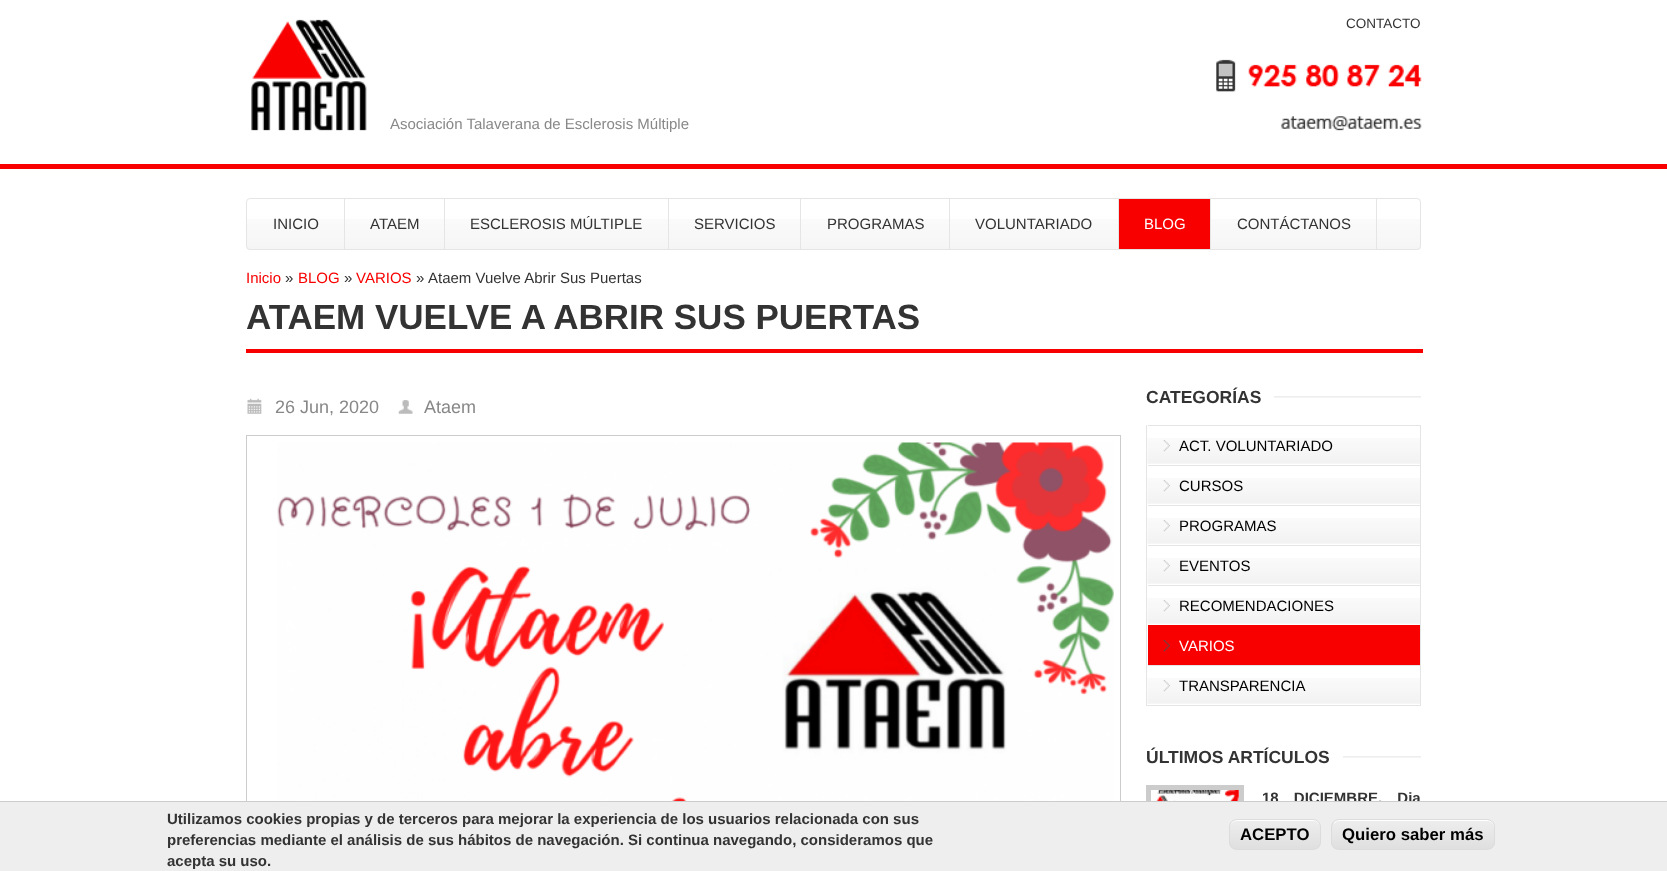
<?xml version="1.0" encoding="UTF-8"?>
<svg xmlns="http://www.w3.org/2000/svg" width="1667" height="871">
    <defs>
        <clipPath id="clip1"><rect x="1229" y="819" width="92" height="31" rx="8"/></clipPath>
        <linearGradient id="g1" gradientUnits="userSpaceOnUse" x1="1230" y1="820" x2="1230" y2="849"><stop offset="0.05" stop-color="#EDEDED"/><stop offset="1" stop-color="#DFDFDF"/></linearGradient>
        <clipPath id="clip2"><rect x="1331" y="819" width="164" height="31" rx="8"/></clipPath>
        <linearGradient id="g2" gradientUnits="userSpaceOnUse" x1="1333" y1="820" x2="1333" y2="849"><stop offset="0.05" stop-color="#EDEDED"/><stop offset="1" stop-color="#DFDFDF"/></linearGradient>
    </defs>
    <rect width="100%" height="100%" fill="#FFFFFF"/>
    <rect x="0" y="164" width="1667" height="5" fill="#F80000"/>
    <text x="1346" y="28" font-family="Liberation Sans" font-size="13.5" fill="#333333">CONTACTO</text>
    <image x="1216" y="59" width="206" height="72" href="img_01.png"/>
    <image x="251" y="19" width="116" height="112" href="img_02.png"/>
    <text x="390" y="129" font-family="Liberation Sans" font-size="15" fill="#888888">Asociación Talaverana de Esclerosis Múltiple</text>
    <image x="246" y="219" width="1175" height="31" href="img_03.png"/>
    <rect x="246.5" y="198.5" width="1174" height="51" rx="3.5" fill="none" stroke="#E5E5E5"/>
    <rect x="344" y="199" width="1" height="50" fill="#E5E5E5"/>
    <text x="273" y="229" font-family="Liberation Sans" font-size="15" fill="#333333">INICIO</text>
    <rect x="444" y="199" width="1" height="50" fill="#E5E5E5"/>
    <text x="370" y="229" font-family="Liberation Sans" font-size="15" fill="#333333">ATAEM</text>
    <rect x="668" y="199" width="1" height="50" fill="#E5E5E5"/>
    <text x="470" y="229" font-family="Liberation Sans" font-size="15" fill="#333333">ESCLEROSIS MÚLTIPLE</text>
    <rect x="800" y="199" width="1" height="50" fill="#E5E5E5"/>
    <text x="694" y="229" font-family="Liberation Sans" font-size="15" fill="#333333">SERVICIOS</text>
    <rect x="949" y="199" width="1" height="50" fill="#E5E5E5"/>
    <text x="827" y="229" font-family="Liberation Sans" font-size="15" fill="#333333">PROGRAMAS</text>
    <rect x="1118" y="199" width="1" height="50" fill="#E5E5E5"/>
    <text x="975" y="229" font-family="Liberation Sans" font-size="15" fill="#333333">VOLUNTARIADO</text>
    <rect x="1119" y="199" width="91" height="50" fill="#F80000"/>
    <rect x="1210" y="199" width="1" height="50" fill="#E5E5E5"/>
    <text x="1144" y="229" font-family="Liberation Sans" font-size="15" fill="#FFFFFF">BLOG</text>
    <rect x="1376" y="199" width="1" height="50" fill="#E5E5E5"/>
    <text x="1237" y="229" font-family="Liberation Sans" font-size="15" fill="#333333">CONTÁCTANOS</text>
    <text x="246" y="283" font-family="Liberation Sans" font-size="15" fill="#F80000">Inicio</text>
    <text x="285" y="283" font-family="Liberation Sans" font-size="15" fill="#333333">»</text>
    <text x="298" y="283" font-family="Liberation Sans" font-size="15" fill="#F80000">BLOG</text>
    <text x="344" y="283" font-family="Liberation Sans" font-size="15" fill="#333333">»</text>
    <text x="356" y="283" font-family="Liberation Sans" font-size="15" fill="#F80000">VARIOS</text>
    <text x="416" y="283" font-family="Liberation Sans" font-size="15" fill="#333333">»</text>
    <text x="428" y="283" font-family="Liberation Sans" font-size="15" fill="#333333">Ataem Vuelve Abrir Sus Puertas</text>
    <rect x="246" y="349" width="1177" height="4" fill="#F80000"/>
    <text x="246" y="329" font-family="Liberation Sans" font-size="35" font-weight="700" fill="#333333">ATAEM VUELVE A ABRIR SUS PUERTAS</text>
    <image x="247" y="398" width="15" height="16" href="img_04.png"/>
    <text x="275" y="413" font-family="Liberation Sans" font-size="18" fill="#888888">26 Jun, 2020</text>
    <image x="398" y="400" width="15" height="14" href="img_05.png"/>
    <text x="424" y="413" font-family="Liberation Sans" font-size="18" fill="#888888">Ataem</text>
    <rect x="246.5" y="435.5" width="874" height="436" fill="none" stroke="#CCCCCC"/>
    <image x="277" y="442" width="837" height="359" href="img_06.png"/>
    <image x="1274" y="396" width="147" height="2" href="img_07.png"/>
    <text x="1146" y="403" font-family="Liberation Sans" font-size="17.5" font-weight="700" fill="#333333">CATEGORÍAS</text>
    <rect x="1420" y="425" width="1" height="281" fill="#E5E5E5"/>
    <rect x="1146" y="705" width="275" height="1" fill="#E5E5E5"/>
    <rect x="1146" y="425" width="1" height="281" fill="#E5E5E5"/>
    <image x="1147" y="438" width="273" height="26" href="img_08.png"/>
    <rect x="1148" y="425" width="272" height="1" fill="#E5E5E5"/>
    <image x="1163" y="440" width="7" height="12" href="img_09.png"/>
    <text x="1179" y="451" font-family="Liberation Sans" font-size="15" fill="#000000">ACT. VOLUNTARIADO</text>
    <image x="1147" y="478" width="273" height="26" href="img_08.png"/>
    <rect x="1148" y="465" width="272" height="1" fill="#E5E5E5"/>
    <image x="1163" y="480" width="7" height="12" href="img_09.png"/>
    <text x="1179" y="491" font-family="Liberation Sans" font-size="15" fill="#000000">CURSOS</text>
    <image x="1147" y="518" width="273" height="26" href="img_08.png"/>
    <rect x="1148" y="505" width="272" height="1" fill="#E5E5E5"/>
    <image x="1163" y="520" width="7" height="12" href="img_09.png"/>
    <text x="1179" y="531" font-family="Liberation Sans" font-size="15" fill="#000000">PROGRAMAS</text>
    <image x="1147" y="558" width="273" height="26" href="img_08.png"/>
    <rect x="1148" y="545" width="272" height="1" fill="#E5E5E5"/>
    <image x="1163" y="560" width="7" height="12" href="img_09.png"/>
    <text x="1179" y="571" font-family="Liberation Sans" font-size="15" fill="#000000">EVENTOS</text>
    <image x="1147" y="598" width="273" height="26" href="img_08.png"/>
    <rect x="1148" y="585" width="272" height="1" fill="#E5E5E5"/>
    <image x="1163" y="600" width="7" height="12" href="img_09.png"/>
    <text x="1179" y="611" font-family="Liberation Sans" font-size="15" fill="#000000">RECOMENDACIONES</text>
    <rect x="1148" y="625" width="272" height="40" fill="#F80000"/>
    <image x="1163" y="640" width="7" height="12" href="img_10.png"/>
    <text x="1179" y="651" font-family="Liberation Sans" font-size="15" fill="#FFFFFF">VARIOS</text>
    <image x="1147" y="678" width="273" height="26" href="img_08.png"/>
    <rect x="1148" y="665" width="272" height="1" fill="#E5E5E5"/>
    <image x="1163" y="680" width="7" height="12" href="img_09.png"/>
    <text x="1179" y="691" font-family="Liberation Sans" font-size="15" fill="#000000">TRANSPARENCIA</text>
    <image x="1343" y="756" width="78" height="2" href="img_11.png"/>
    <text x="1146" y="763" font-family="Liberation Sans" font-size="17.5" font-weight="700" fill="#333333">ÚLTIMOS ARTÍCULOS</text>
    <rect x="1148.5" y="787.5" width="93" height="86" fill="none" stroke="#CCCCCC" stroke-width="5"/>
    <image x="1151" y="790" width="88" height="11" href="img_12.png"/>
    <text x="1262" y="803" word-spacing="11" font-family="Liberation Sans" font-size="15" font-weight="700" fill="#333333">18 DICIEMBRE. Dia</text>
    <rect x="0" y="802" width="1667" height="69" fill="#EEEEEE"/>
    <rect x="0" y="801" width="1667" height="1" fill="#CCCCCC"/>
    <text font-family="Liberation Sans" font-size="15" font-weight="700" fill="#333333">
        <tspan x="167" y="824">Utilizamos cookies propias y de terceros para mejorar la experiencia de los usuarios relacionada con sus</tspan>
        <tspan x="167" y="845">preferencias mediante el análisis de sus hábitos de navegación. Si continua navegando, consideramos que</tspan>
        <tspan x="167" y="866">acepta su uso.</tspan>
    </text>
    <g clip-path="url(#clip1)">
        <rect x="1229" y="820" width="92" height="29" fill="url(#g1)"/>
    </g>
    <path d="M 1236 821 H 1314 C 1317 821 1320 824 1320 828 C 1320 817 1310 820 1301 820 H 1249 C 1240 820 1230 817 1230 828 C 1230 824 1233 821 1236 821 Z" fill="#FFFFFF"/>
    <rect x="1229.5" y="819.5" width="91" height="30" rx="7.5" fill="none" stroke="#DCDCDC"/>
    <text x="1240" y="840" font-family="Liberation Sans" font-size="16.75" font-weight="700" fill="#000000">ACEPTO</text>
    <g clip-path="url(#clip2)">
        <rect x="1331" y="820" width="164" height="29" fill="url(#g2)"/>
    </g>
    <path d="M 1339 821 H 1488 C 1491 821 1494 824 1494 828 V 826 C 1494 823 1491 820 1488 820 H 1339 C 1337 820 1334 821 1334 824 C 1335 822 1337 821 1339 821 Z" fill="#FFFFFF"/>
    <rect x="1331.5" y="819.5" width="163" height="30" rx="7.5" fill="none" stroke="#DCDCDC"/>
    <text x="1342" y="840" font-family="Liberation Sans" font-size="16.75" font-weight="700" fill="#000000">Quiero saber más</text>
</svg>
